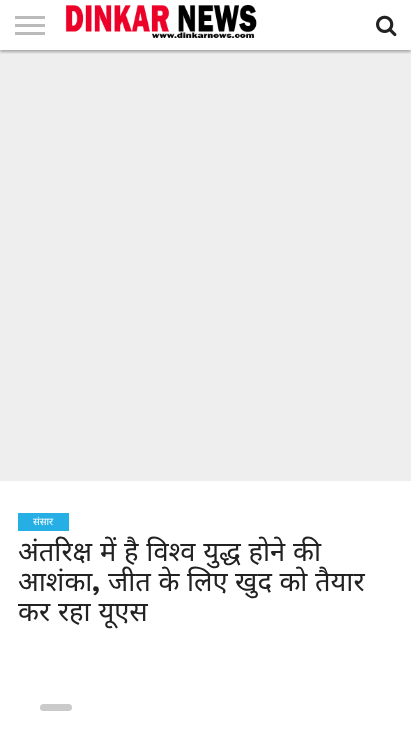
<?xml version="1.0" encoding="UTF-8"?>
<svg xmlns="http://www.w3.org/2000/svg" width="411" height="743">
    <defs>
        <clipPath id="clip1"><rect x="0" y="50" width="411" height="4"/></clipPath>
        <filter id="blur1" x="-50%" y="-200%" width="200%" height="500%"><feGaussianBlur stdDeviation="1.5"/></filter>
    </defs>
    <rect width="100%" height="100%" fill="#FFFFFF"/>
    <rect x="0" y="50" width="411" height="431" fill="#EEEEEE"/>
    <g clip-path="url(#clip1)">
        <rect x="0" y="2" width="411" height="50" fill="#000000" fill-opacity="0.3" filter="url(#blur1)"/>
    </g>
    <rect x="15" y="16" width="30" height="3" fill="#BBBBBB"/>
    <rect x="15" y="24" width="30" height="3" fill="#BBBBBB"/>
    <rect x="15" y="32" width="30" height="3" fill="#BBBBBB"/>
    <image x="65" y="5" width="192" height="33" href="img_01.png"/>
    <image x="376" y="15" width="21" height="22" href="img_02.png"/>
    <rect x="18" y="513" width="51" height="18" fill="#25AFE5"/>
    <text x="33" y="525" font-family="Noto Sans" font-size="10" fill="#FFFFFF">संसार</text>
    <text font-family="Noto Sans" font-size="27.25" fill="#222222">
        <tspan x="18" y="561" word-spacing="0.75">अंतरिक्ष में है विश्‍व युद्ध होने की</tspan>
        <tspan x="18" y="591">आशंका</tspan>
    </text>
    <text x="92" y="591" font-family="Work Sans" font-size="27.25" font-weight="700" fill="#222222">,</text>
    <text x="108" y="591" word-spacing="0.5" font-family="Noto Sans" font-size="27.25" fill="#222222">जीत के लिए खुद को तैयार</text>
    <text x="18" y="621" word-spacing="0.75" font-family="Noto Sans" font-size="27.25" fill="#222222">कर रहा यूएस</text>
    <rect x="40" y="704" width="32" height="7" rx="3.5" fill="#CACACA"/>
</svg>
